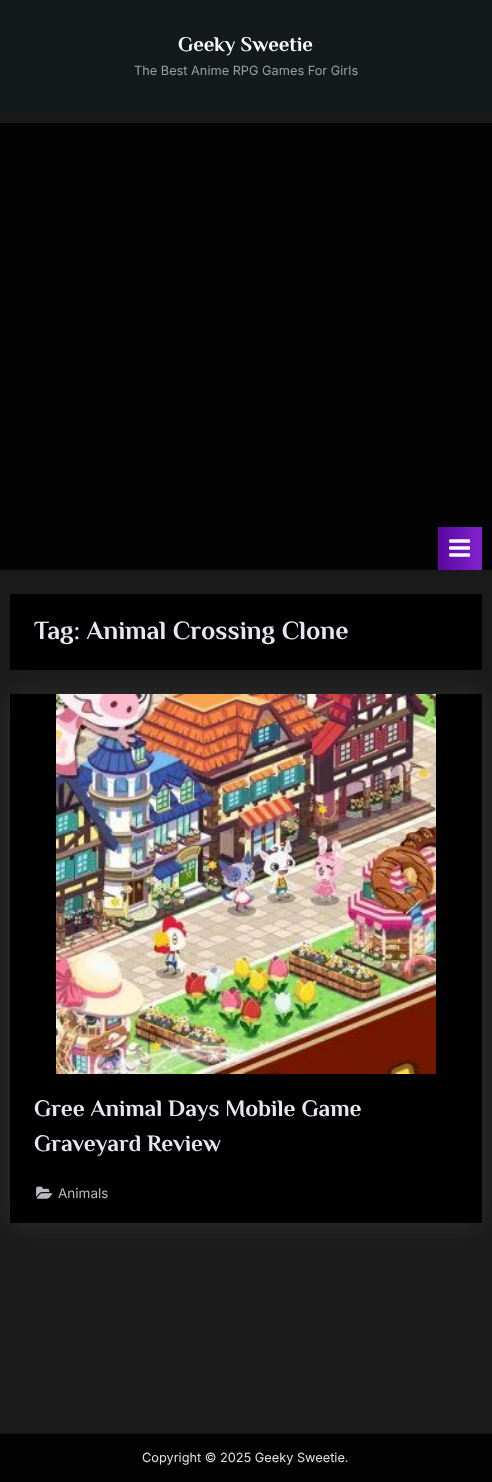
<?xml version="1.0" encoding="UTF-8"?>
<svg xmlns="http://www.w3.org/2000/svg" width="492" height="1482">
    <defs>
        <linearGradient id="g1" gradientUnits="userSpaceOnUse" x1="360" y1="549" x2="440" y2="549"><stop offset="0" stop-color="#5B08A0"/><stop offset="0.51" stop-color="#8023CE"/><stop offset="1" stop-color="#5B08A0"/></linearGradient>
        <linearGradient id="g2" gradientUnits="userSpaceOnUse" x1="440" y1="549" x2="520" y2="549"><stop offset="0" stop-color="#5B08A0"/><stop offset="0.51" stop-color="#8023CE"/><stop offset="1" stop-color="#5B08A0"/></linearGradient>
        <filter id="blur1" x="-50%" y="-200%" width="200%" height="500%"><feGaussianBlur stdDeviation="15"/></filter>
    </defs>
    <rect width="100%" height="100%" fill="#1A1A1A"/>
    <rect x="0" y="0" width="492" height="113" fill="#141A1A"/>
    <text x="178" y="51" font-family="Philosopher" font-size="20.75" font-weight="700" fill="#FFFFFF">Geeky Sweetie</text>
    <text x="134" y="75" font-family="Inter" font-size="12.75" fill="#999FA3">The Best Anime RPG Games For Girls</text>
    <rect x="0" y="123" width="492" height="447" fill="#030303"/>
    <rect x="438" y="527" width="2" height="43" fill="url(#g1)"/>
    <rect x="440" y="527" width="42" height="43" fill="url(#g2)"/>
    <image x="449" y="539" width="22" height="18" href="img_01.png"/>
    <rect x="10" y="594" width="472" height="76" fill="#010101"/>
    <text x="34" y="639" font-family="Philosopher" font-size="26" font-weight="700" fill="#E7E7EF">Tag: Animal Crossing Clone</text>
    <rect x="10" y="695" width="472" height="529" fill="#FFFFFF" fill-opacity="0.09" filter="url(#blur1)"/>
    <rect x="10" y="694" width="472" height="529" fill="#010101"/>
    <image x="56" y="694" width="380" height="380" href="img_02.png"/>
    <text font-family="Philosopher" font-size="23.4" font-weight="700" fill="#E7E7EF">
        <tspan x="34" y="1116">Gree Animal Days Mobile Game</tspan>
        <tspan x="34" y="1151">Graveyard Review</tspan>
    </text>
    <image x="36" y="1186" width="17" height="13" href="img_03.png"/>
    <text x="58" y="1198" font-family="Inter" font-size="13.5" fill="#B8BCBF">Animals</text>
    <rect x="0" y="1434" width="492" height="48" fill="#020202"/>
    <text x="142" y="1462" font-family="Inter" font-size="12.75" fill="#E1E1E1">Copyright © 2025 Geeky Sweetie.</text>
</svg>
